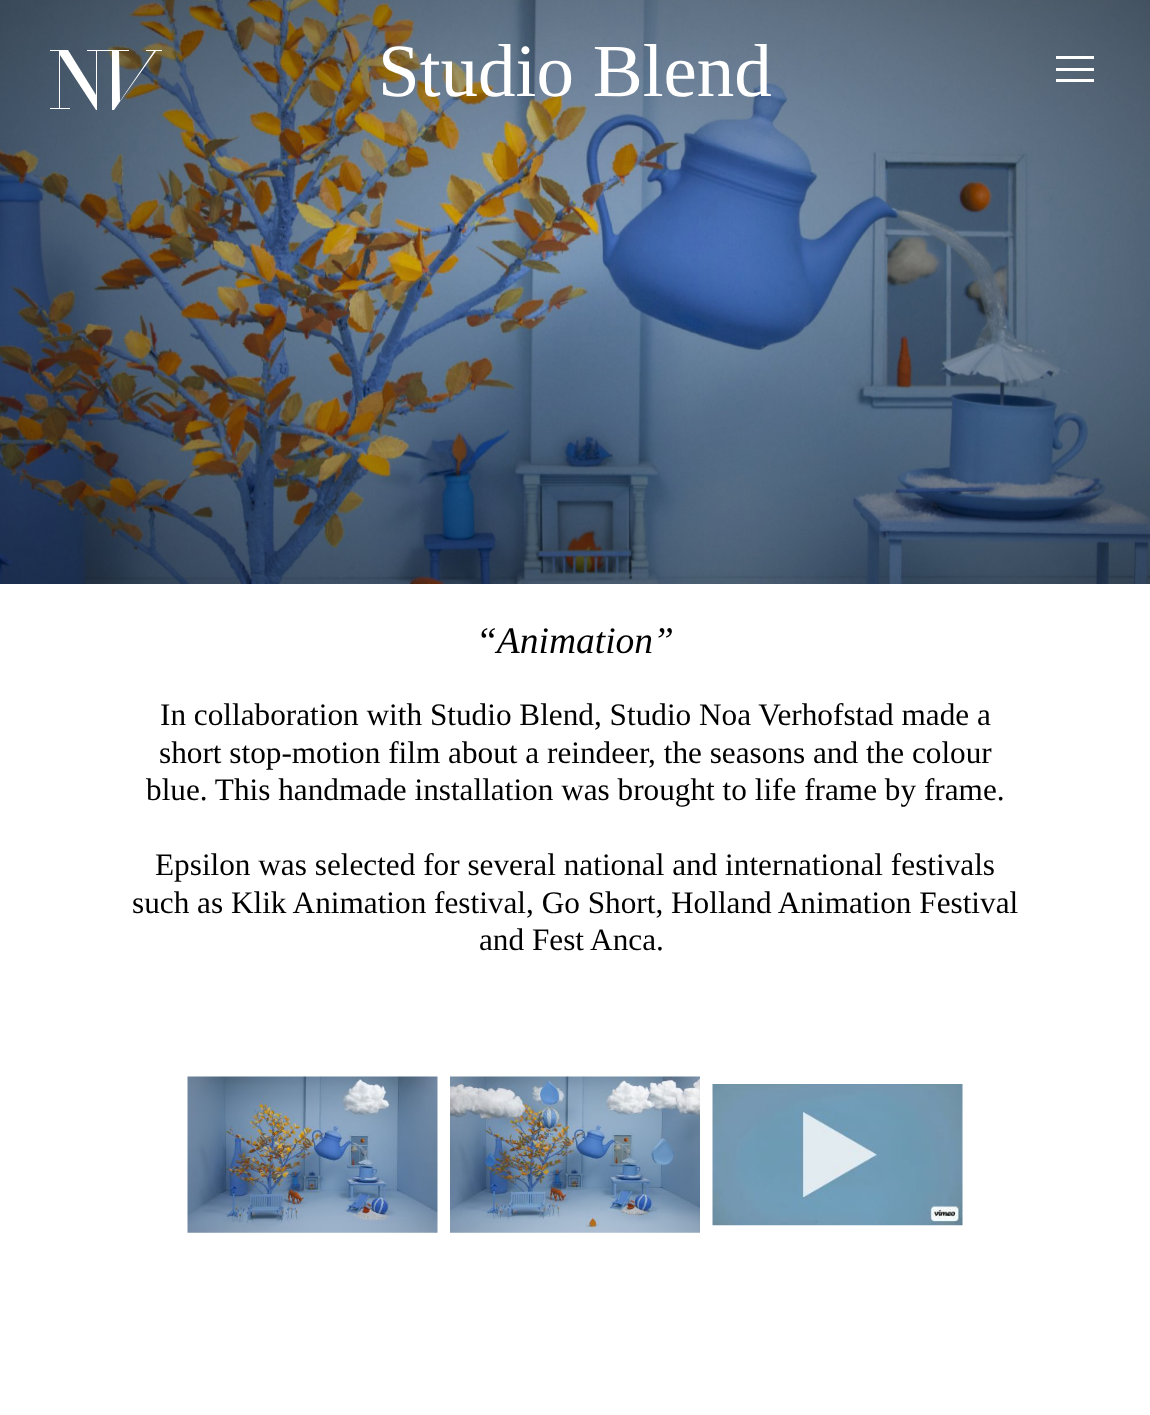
<?xml version="1.0" encoding="UTF-8"?>
<svg xmlns="http://www.w3.org/2000/svg" width="1150" height="1415">
    <rect width="100%" height="100%" fill="#FFFFFF"/>
    <image x="0" y="0" width="1150" height="584" href="img_01.png"/>
    <path d="M 146 50 V 51 H 154 L 120 101 L 119 51 H 129 V 50 H 87 V 51 H 96 V 95 L 68 50 H 50 V 51 H 59 V 108 H 50 V 109 H 70 V 108 H 60 V 55 L 96 110 H 97 V 51 H 112 V 110 H 114 L 156 51 H 162 V 50 Z" fill="#FFFFFF"/>
    <text x="378" y="96" font-family="Liberation Serif" font-size="75" fill="#FFFFFF">Studio Blend</text>
    <text x="476" y="653" font-family="Liberation Serif" font-size="37.5" font-style="italic" fill="#000000">“Animation”</text>
    <text x="160" y="725" font-family="Liberation Serif" font-size="31.25" fill="#000000">In collaboration with Studio Blend, Studio Noa Verhofstad made a</text>
    <text x="159" y="763" font-family="Liberation Serif" font-size="31.25" fill="#000000">short stop-motion film about a reindeer, the seasons and the colour</text>
    <text x="146" y="800" font-family="Liberation Serif" font-size="31.25" fill="#000000">blue. This handmade installation was brought to life frame by frame.</text>
    <text x="155" y="875" font-family="Liberation Serif" font-size="31.25" fill="#000000">Epsilon was selected for several national and international festivals</text>
    <text x="132" y="913" font-family="Liberation Serif" font-size="31.25" fill="#000000">such as Klik Animation festival, Go Short, Holland Animation Festival</text>
    <text x="479" y="950" font-family="Liberation Serif" font-size="31.25" fill="#000000">and Fest Anca.</text>
    <image x="187" y="1076" width="251" height="157" href="img_02.png"/>
    <image x="450" y="1076" width="250" height="157" href="img_03.png"/>
    <image x="712" y="1084" width="251" height="142" href="img_04.png"/>
    <rect x="1056" y="56" width="38" height="3" fill="#FFFFFF"/>
    <rect x="1056" y="68" width="38" height="3" fill="#FFFFFF"/>
    <rect x="1056" y="79" width="38" height="3" fill="#FFFFFF"/>
</svg>
